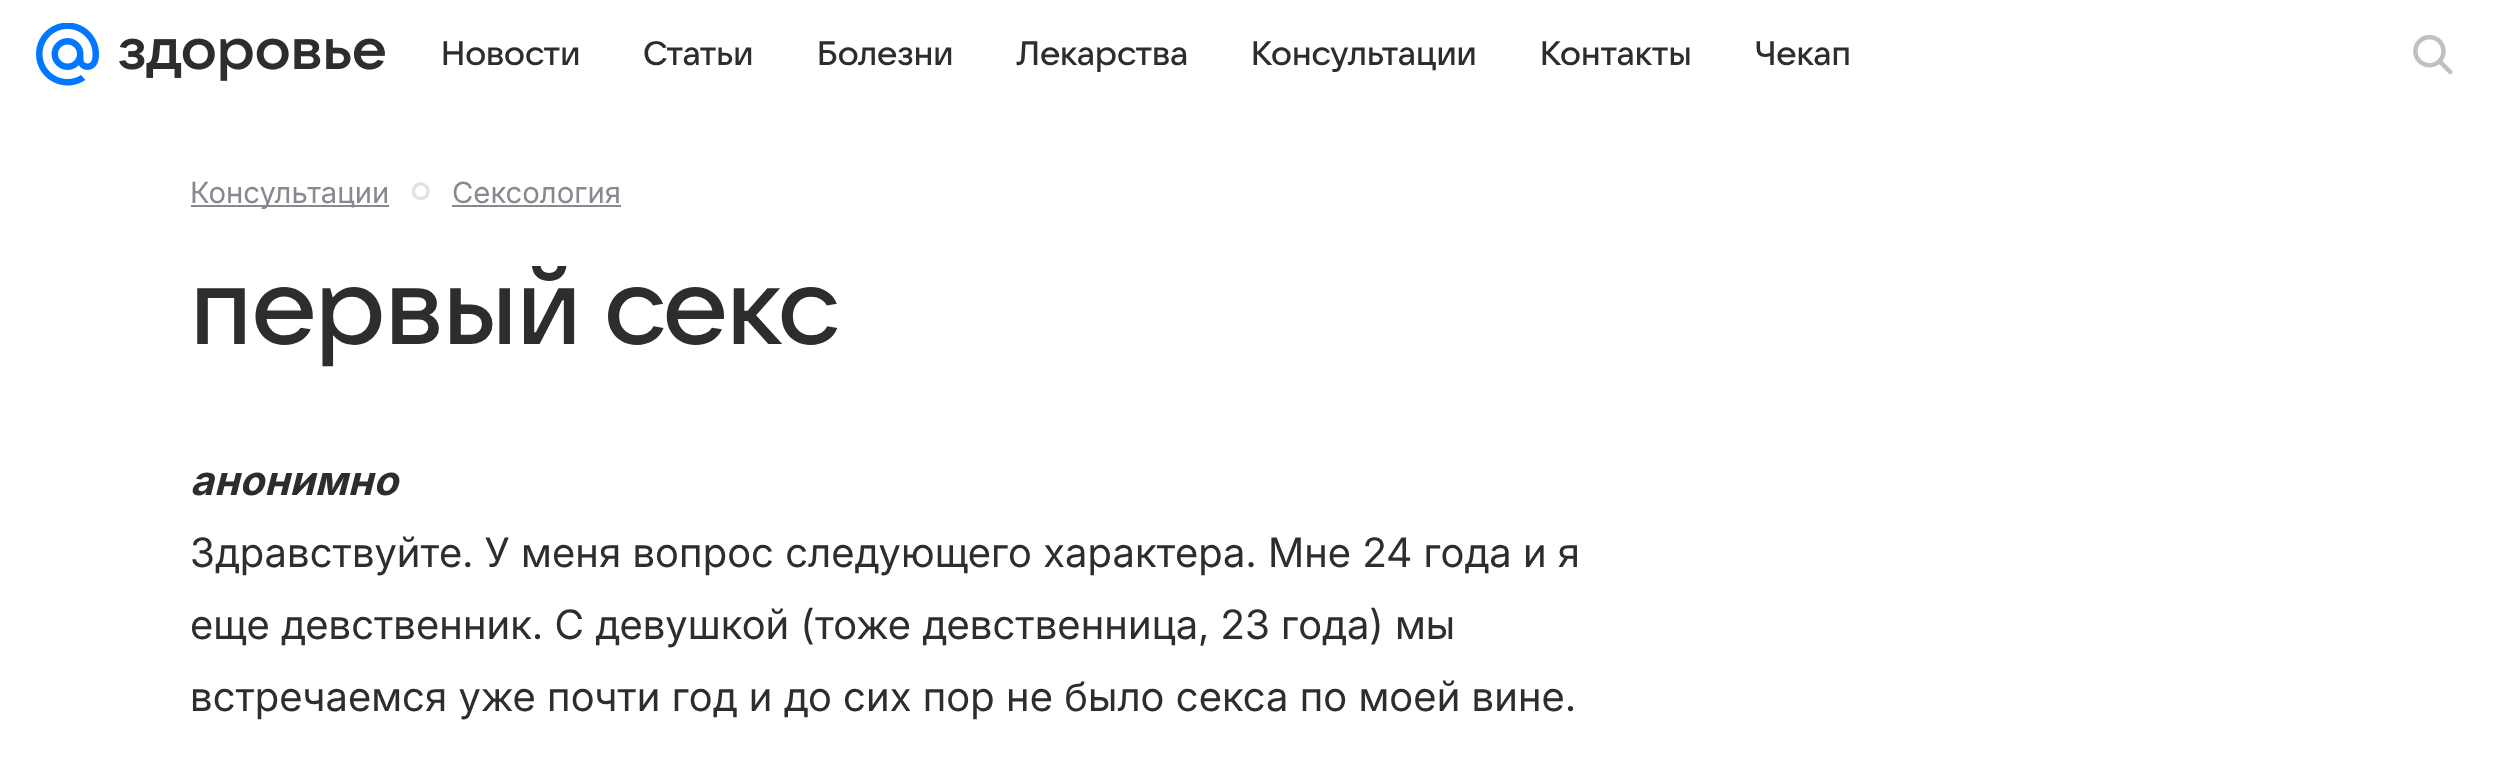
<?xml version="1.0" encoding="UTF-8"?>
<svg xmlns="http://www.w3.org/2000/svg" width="2494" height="768">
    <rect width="100%" height="100%" fill="#FFFFFF"/>
    <image x="36" y="23" width="63" height="63" href="img_01.png"/>
    <image x="119" y="38" width="266" height="43" href="img_02.png"/>
    <text x="441" y="65" font-family="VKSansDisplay" font-size="33.75" font-weight="500" fill="#2C2D2E">Новости</text>
    <text x="643" y="65" font-family="VKSansDisplay" font-size="33.75" font-weight="500" fill="#2C2D2E">Статьи</text>
    <text x="817" y="65" font-family="VKSansDisplay" font-size="33.75" font-weight="500" fill="#2C2D2E">Болезни</text>
    <text x="1016" y="65" font-family="VKSansDisplay" font-size="33.75" font-weight="500" fill="#2C2D2E">Лекарства</text>
    <text x="1251" y="65" font-family="VKSansDisplay" font-size="33.75" font-weight="500" fill="#2C2D2E">Консультации</text>
    <text x="1540" y="65" font-family="VKSansDisplay" font-size="33.75" font-weight="500" fill="#2C2D2E">Контакты</text>
    <text x="1755" y="65" font-family="VKSansDisplay" font-size="33.75" font-weight="500" fill="#2C2D2E">Чекап</text>
    <image x="2413" y="34" width="40" height="41" href="img_03.png"/>
    <rect x="191" y="205" width="198" height="2" fill="#87898F"/>
    <text x="190" y="203" font-family="'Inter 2'" font-size="29.25" fill="#87898F">Консультации</text>
    <image x="411" y="182" width="19" height="19" href="img_04.png"/>
    <text x="452" y="203" font-family="'Inter 2'" font-size="29.25" fill="#87898F">Сексология</text>
    <rect x="452" y="205" width="169" height="2" fill="#87898F"/>
    <text x="190" y="344" font-family="VKSansDisplay" font-size="108" font-weight="500" letter-spacing="-0.5" fill="#2C2D2E">первый секс</text>
    <text x="190" y="495" font-family="Inter" font-size="40.5" font-weight="700" font-style="italic" letter-spacing="0.12" fill="#2C2D2E">анонимно</text>
    <text font-family="Inter" font-size="40.5" letter-spacing="0.12" fill="#2C2D2E">
        <tspan x="190" y="567">Здравствуйте. У меня вопрос следующего характера. Мне 24 года и я</tspan>
        <tspan x="190" y="639">еще девственник. С девушкой (тоже девственница, 23 года) мы</tspan>
        <tspan x="190" y="711">встречаемся уже почти год и до сих пор не было секса по моей вине.</tspan>
    </text>
</svg>
